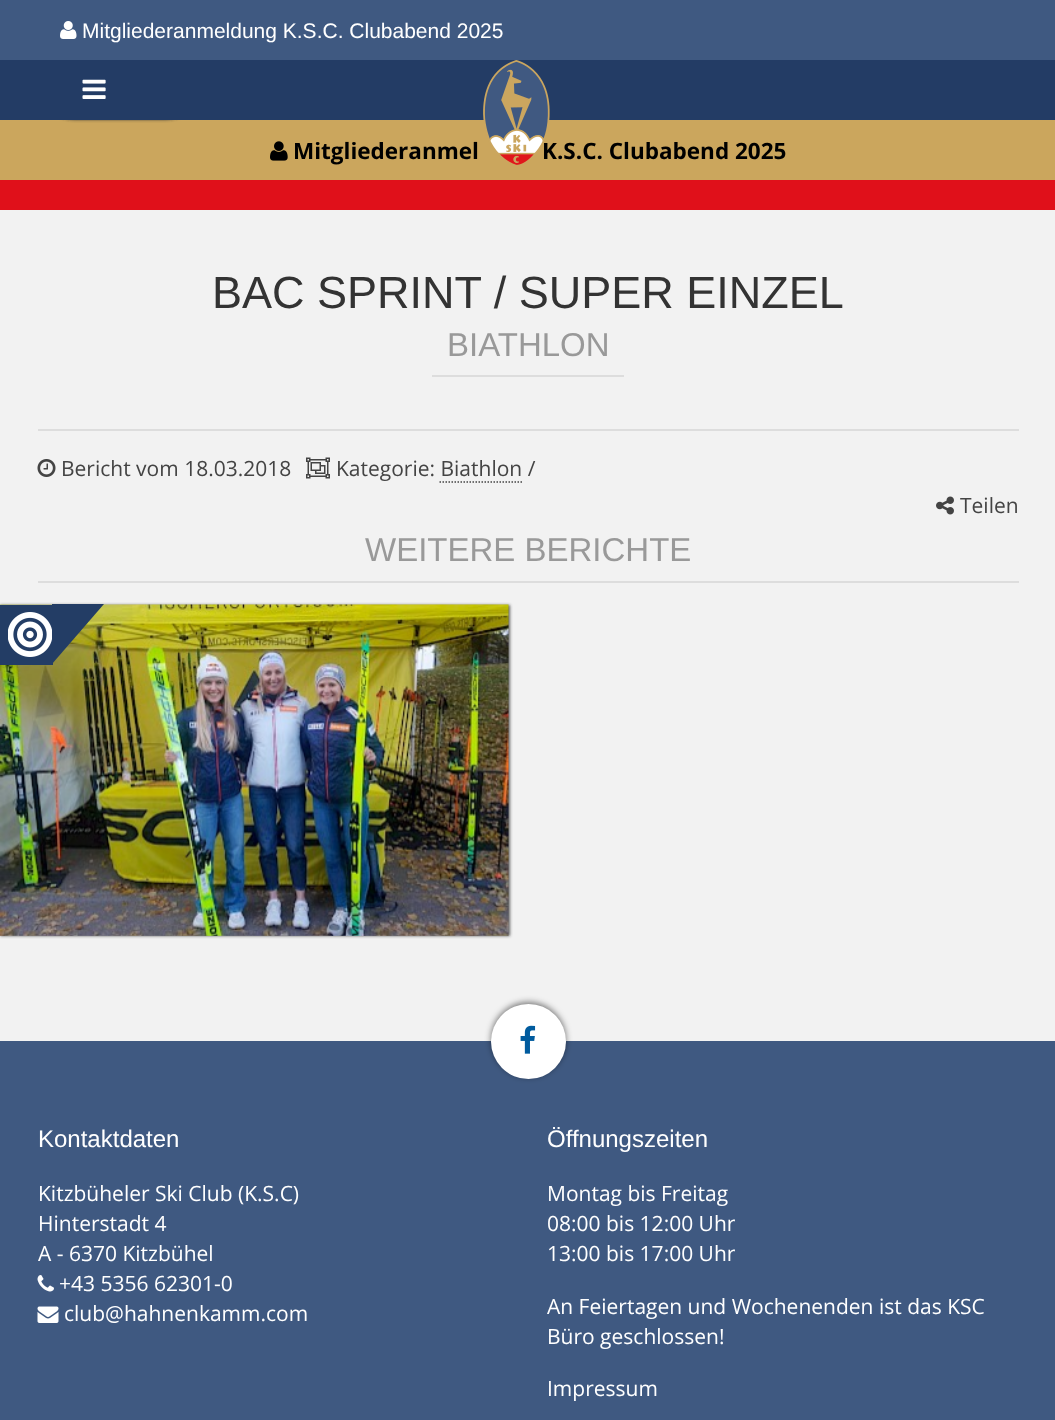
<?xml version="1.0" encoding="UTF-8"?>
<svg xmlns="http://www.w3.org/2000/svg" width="1055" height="1420">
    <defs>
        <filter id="blur1" x="-50%" y="-200%" width="200%" height="500%"><feGaussianBlur stdDeviation="1.5"/></filter>
        <filter id="blur2" x="-50%" y="-200%" width="200%" height="500%"><feGaussianBlur stdDeviation="3"/></filter>
    </defs>
    <rect width="100%" height="100%" fill="#F2F2F2"/>
    <rect x="0" y="180" width="1055" height="30" fill="#E0101A"/>
    <rect x="0" y="120" width="1055" height="60" fill="#CBA65D"/>
    <rect x="45" y="72" width="150" height="48" rx="30" fill="#323232" fill-opacity="0.75" filter="url(#blur1)"/>
    <rect x="0" y="60" width="1055" height="60" fill="#233C65"/>
    <rect x="0" y="0" width="1055" height="60" fill="#3F5981"/>
    <image x="60" y="21" width="17" height="18" href="img_01.png"/>
    <text x="82" y="38" font-family="Liberation Sans" font-size="21" fill="#FFFFFF">Mitgliederanmeldung K.S.C. Clubabend 2025</text>
    <image x="82" y="79" width="24" height="20" href="img_02.png"/>
    <text x="542" y="159" font-family="Open Sans" font-size="22.5" font-weight="700" fill="#000000">K.S.C. Clubabend 2025</text>
    <image x="483" y="60" width="67" height="105" href="img_03.png"/>
    <image x="270" y="141" width="18" height="20" href="img_04.png"/>
    <text x="293" y="159" font-family="Open Sans" font-size="22.5" font-weight="700" fill="#000000">Mitgliederanmel</text>
    <text x="212" y="308" font-family="Liberation Sans" font-size="45" fill="#333333">BAC SPRINT / SUPER EINZEL</text>
    <rect x="432" y="375" width="192" height="2" fill="#DDDDDD"/>
    <text x="447" y="356" font-family="Liberation Sans" font-size="33" fill="#999999">BIATHLON</text>
    <rect x="38" y="429" width="981" height="2" fill="#DDDDDD"/>
    <image x="37" y="459" width="19" height="18" href="img_05.png"/>
    <text x="61" y="476" font-family="Open Sans" font-size="21" fill="#444444">Bericht vom 18.03.2018</text>
    <image x="306" y="457" width="24" height="22" href="img_06.png"/>
    <text x="336" y="476" font-family="Open Sans" font-size="21" fill="#444444">Kategorie: Biathlon /</text>
    <path d="M 439.5 482 H 522" fill="none" stroke="#444444" stroke-width="1.5" stroke-dasharray="1.5 1.5"/>
    <image x="936" y="496" width="18" height="19" href="img_07.png"/>
    <text x="960" y="513" font-family="Open Sans" font-size="21" fill="#444444">Teilen</text>
    <rect x="38" y="581" width="981" height="2" fill="#DDDDDD"/>
    <text x="365" y="561" font-family="Liberation Sans" font-size="33" fill="#999999">WEITERE BERICHTE</text>
    <rect x="0" y="605" width="510" height="331" fill="#323232" fill-opacity="0.75" filter="url(#blur1)"/>
    <image x="0" y="604" width="509" height="332" href="img_08.png"/>
    <rect x="0" y="605" width="53" height="60" fill="#233D65"/>
    <image x="8" y="612" width="44" height="45" href="img_09.png"/>
    <path d="M 52 664 V 604 H 104 Z" fill="#233D65"/>
    <rect x="0" y="1041" width="1055" height="379" fill="#3F5981"/>
    <rect x="491" y="1002" width="75" height="75" rx="37.5" fill="#000000" fill-opacity="0.5" filter="url(#blur2)"/>
    <circle cx="528.5" cy="1041.5" r="37.5" fill="#FFFFFF"/>
    <image x="520" y="1025" width="16" height="29" href="img_10.png"/>
    <text x="38" y="1147" font-family="Liberation Sans" font-size="24" fill="#FFFFFF">Kontaktdaten</text>
    <text font-family="Open Sans" font-size="21" fill="#FFFFFF">
        <tspan x="38" y="1201">Kitzbüheler Ski Club (K.S.C)</tspan>
        <tspan x="38" y="1231">Hinterstadt 4</tspan>
        <tspan x="38" y="1261">A - 6370 Kitzbühel</tspan>
    </text>
    <image x="37" y="1275" width="17" height="17" href="img_11.png"/>
    <text x="59" y="1291" font-family="Open Sans" font-size="21" fill="#FFFFFF">+43 5356 62301-0</text>
    <image x="37" y="1306" width="22" height="17" href="img_12.png"/>
    <text x="64" y="1321" font-family="Open Sans" font-size="21" fill="#FFFFFF">club@hahnenkamm.com</text>
    <text x="547" y="1147" font-family="Liberation Sans" font-size="24" fill="#FFFFFF">Öffnungszeiten</text>
    <text font-family="Open Sans" font-size="21" fill="#FFFFFF">
        <tspan x="547" y="1201">Montag bis Freitag</tspan>
        <tspan x="547" y="1231">08:00 bis 12:00 Uhr</tspan>
        <tspan x="547" y="1261">13:00 bis 17:00 Uhr</tspan>
    </text>
    <text font-family="Open Sans" font-size="21" fill="#FFFFFF">
        <tspan x="547" y="1314">An Feiertagen und Wochenenden ist das KSC</tspan>
        <tspan x="547" y="1344">Büro geschlossen!</tspan>
    </text>
    <text x="547" y="1396" font-family="Open Sans" font-size="21" fill="#FFFFFF">Impressum</text>
</svg>
